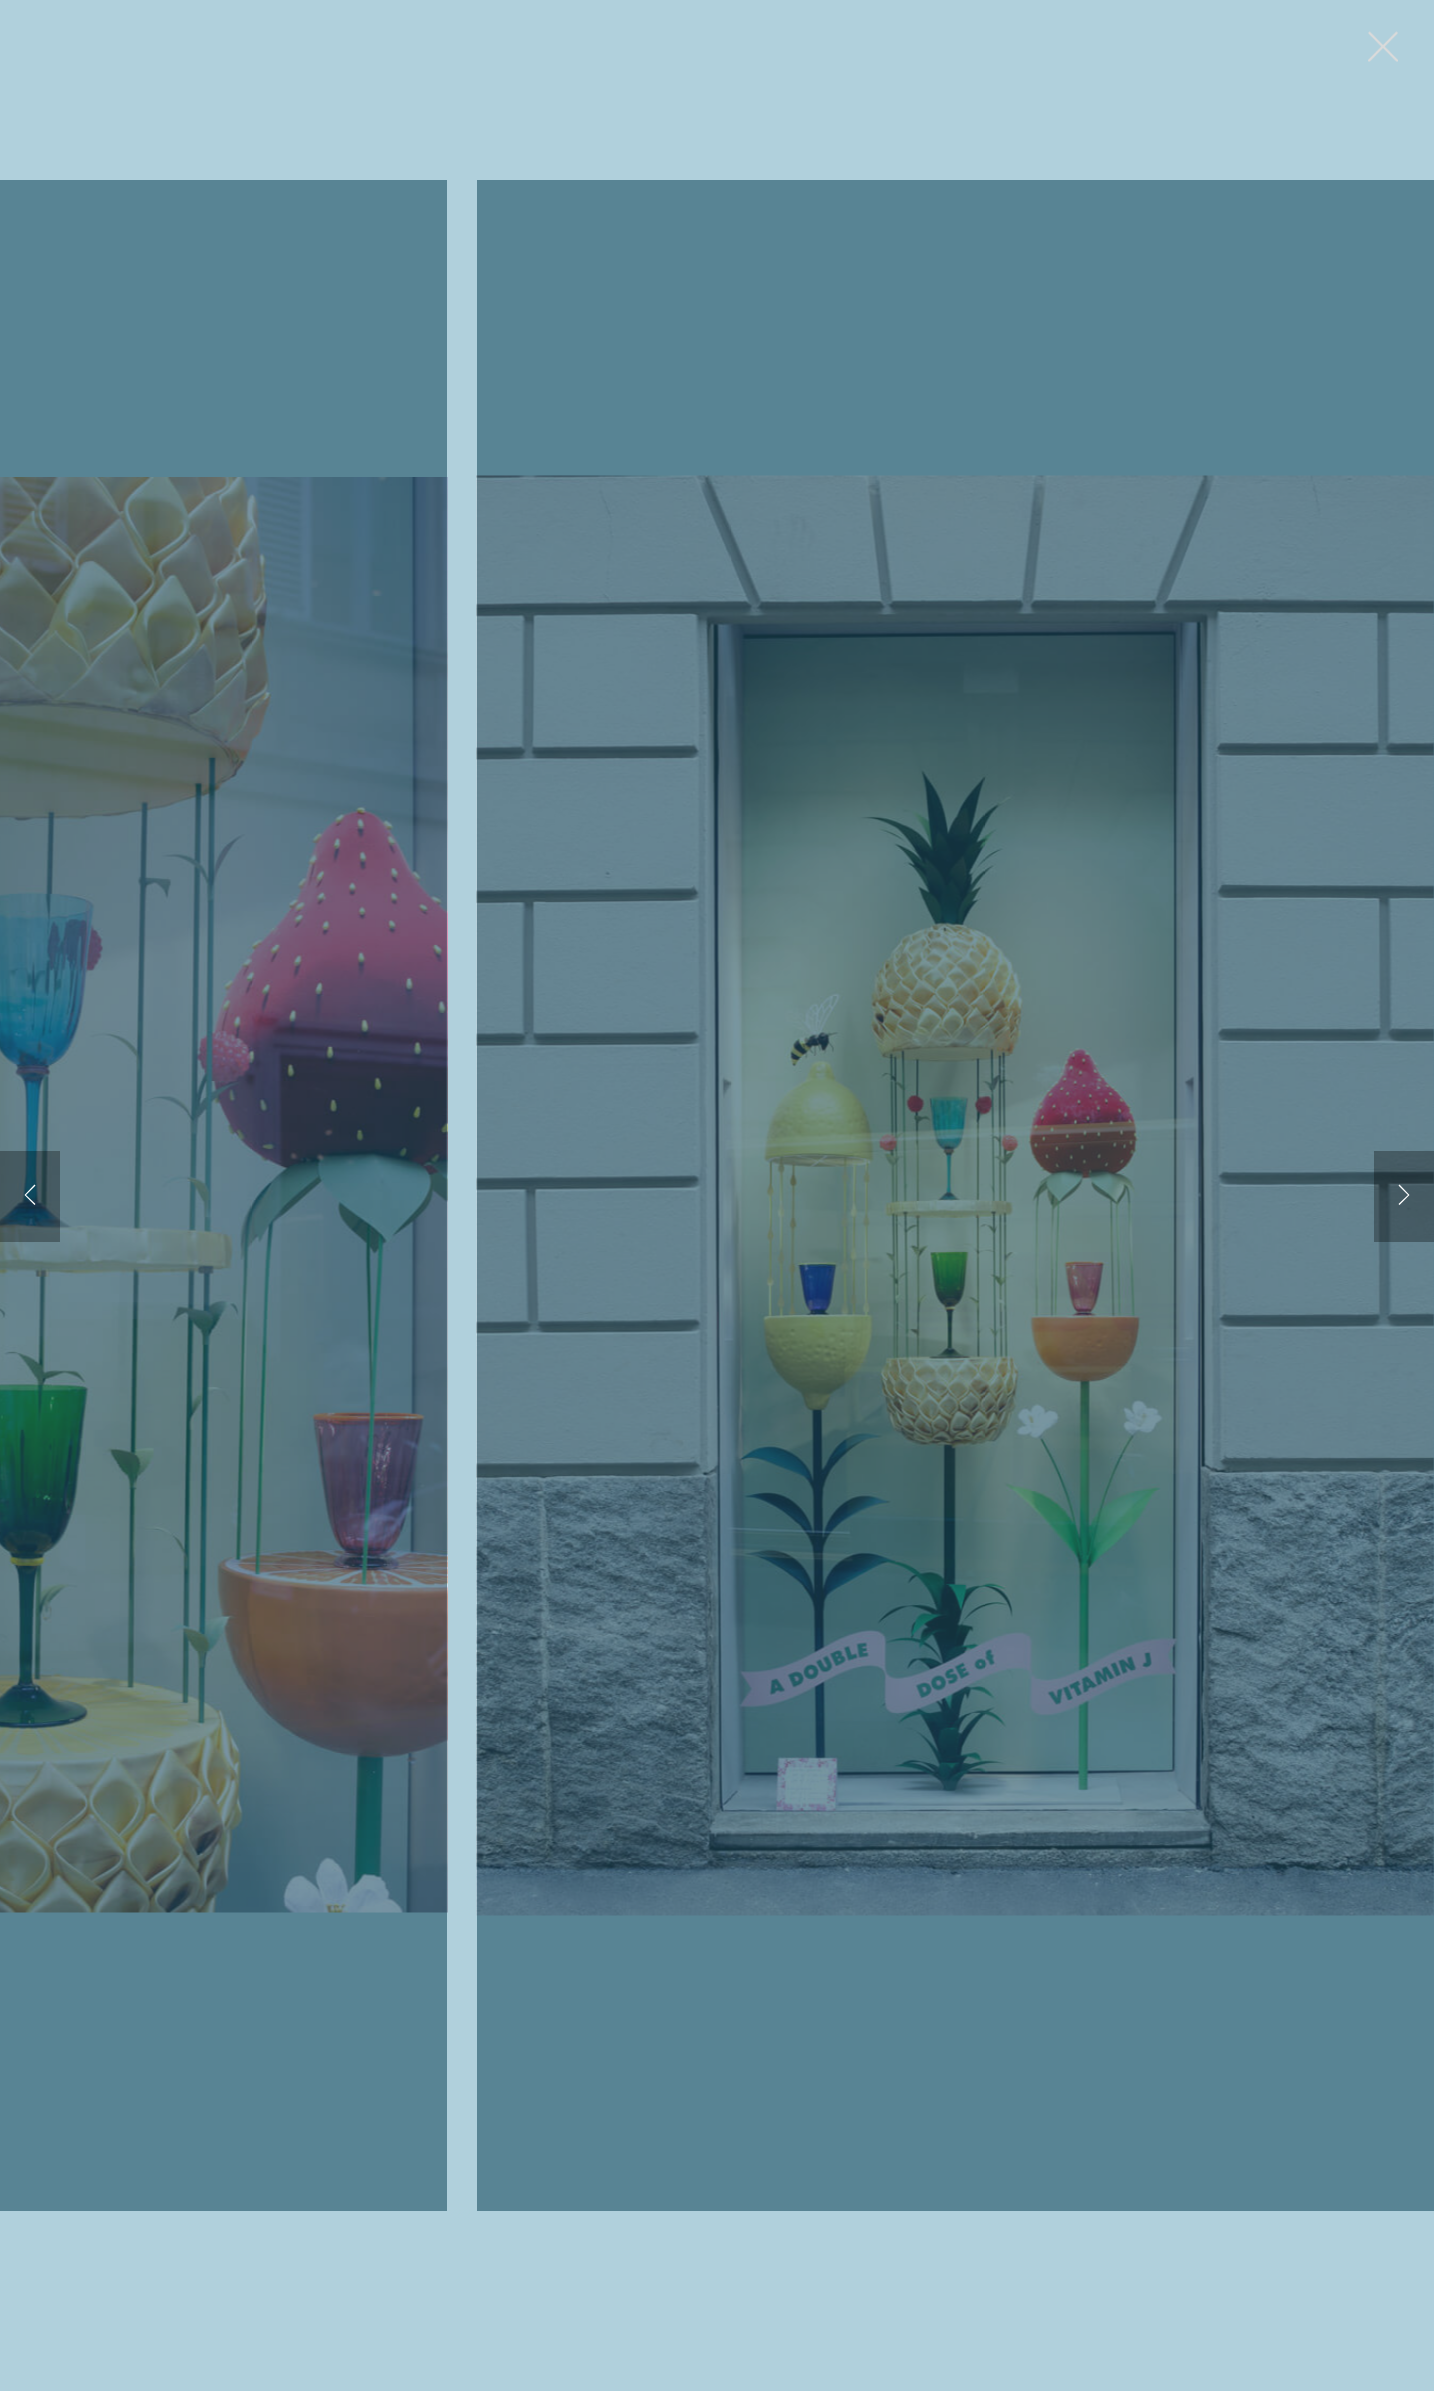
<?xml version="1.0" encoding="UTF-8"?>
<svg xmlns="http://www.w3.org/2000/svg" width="1434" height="2391">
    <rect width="100%" height="100%" fill="#B0D0DC"/>
    <rect x="477" y="180" width="957" height="2031" fill="#588494"/>
    <rect x="0" y="180" width="447" height="2031" fill="#588494"/>
    <image x="1368" y="31" width="30" height="31" href="img_01.png"/>
    <image x="0" y="477" width="448" height="1436" href="img_02.png"/>
    <image x="476" y="475" width="958" height="1441" href="img_03.png"/>
    <rect x="0" y="1151" width="60" height="91" fill="#000000" fill-opacity="0.3"/>
    <path d="M 34.5 1205 L 24.5 1195 L 34.5 1184.5 L 35.5 1185.5 L 26 1195 L 35.5 1204 Z" fill="#FFFFFF"/>
    <rect x="1374" y="1151" width="60" height="91" fill="#000000" fill-opacity="0.3"/>
    <path d="M 1398.5 1185.5 L 1399.5 1184.5 L 1409.5 1195 L 1399.5 1205 L 1398.5 1204 L 1408 1195 Z" fill="#FFFFFF"/>
</svg>
